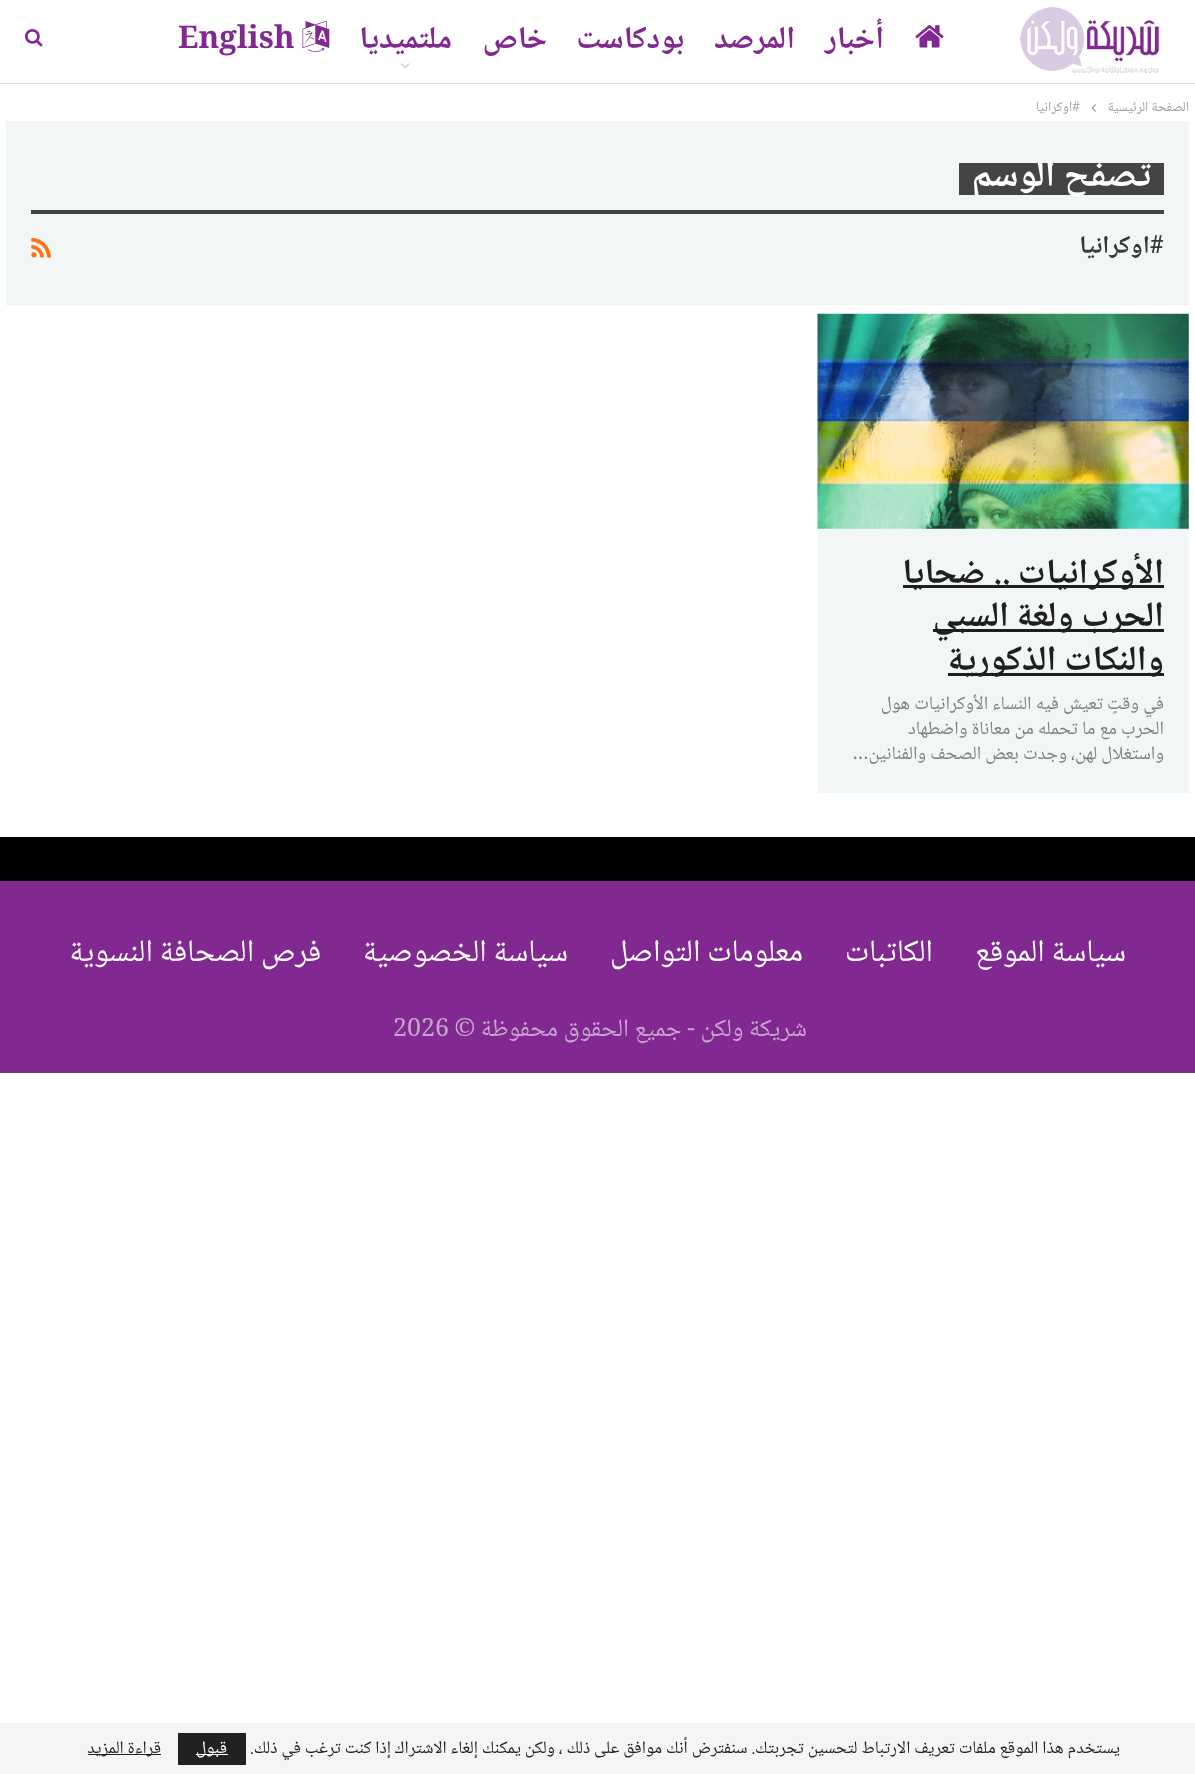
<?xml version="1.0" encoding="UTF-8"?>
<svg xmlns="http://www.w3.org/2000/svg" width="1195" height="1774">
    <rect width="100%" height="100%" fill="#FFFFFF"/>
    <rect x="0" y="83" width="1195" height="1" fill="#DEDEDE"/>
    <image x="1019" y="6" width="141" height="67" href="img_01.png"/>
    <image x="915" y="25" width="29" height="23" href="img_02.png"/>
    <text x="884" y="48" font-family="Noto Naskh Arabic" font-size="31.25" font-weight="700" direction="rtl" fill="#812990">أخبار</text>
    <text x="795" y="48" font-family="Noto Naskh Arabic" font-size="31.25" font-weight="700" direction="rtl" fill="#812990">المرصد</text>
    <text x="684" y="48" font-family="Noto Naskh Arabic" font-size="31.25" font-weight="700" direction="rtl" fill="#812990">بودكاست</text>
    <text x="547" y="48" font-family="Noto Naskh Arabic" font-size="31.25" font-weight="700" direction="rtl" fill="#812990">خاص</text>
    <text x="452" y="48" font-family="Noto Naskh Arabic" font-size="31.25" font-weight="700" direction="rtl" fill="#812990">ملتميديا</text>
    <image x="401" y="63" width="9" height="6" href="img_03.png"/>
    <image x="302" y="20" width="28" height="32" href="img_04.png"/>
    <text x="178" y="48" font-family="Noto Naskh Arabic" font-size="31.25" font-weight="700" fill="#812990">English</text>
    <image x="25" y="29" width="18" height="18" href="img_05.png"/>
    <text x="1189" y="111" font-family="Noto Naskh Arabic" font-size="13.75" direction="rtl" fill="#9E9E9E">الصفحة الرئيسية</text>
    <image x="1091" y="104" width="5" height="8" href="img_06.png"/>
    <text x="1080" y="111" font-family="Noto Naskh Arabic" font-size="13.75" direction="rtl" fill="#9E9E9E">#اوكرانيا</text>
    <rect x="6" y="121" width="1183" height="183" fill="#F3F6F6"/>
    <rect x="6" y="304" width="1183" height="1" fill="#F0F0F0"/>
    <rect x="959" y="163" width="205" height="32" fill="#444444"/>
    <text x="1151" y="186" font-family="Noto Naskh Arabic" font-size="37.5" font-weight="700" direction="rtl" fill="#FFFFFF">تصفح الوسم</text>
    <rect x="31" y="210" width="1133" height="4" fill="#444444"/>
    <text x="1164" y="253" font-family="Noto Naskh Arabic" font-size="25" font-weight="700" direction="rtl" fill="#383838">#اوكرانيا</text>
    <image x="31" y="237" width="20" height="21" href="img_07.png"/>
    <rect x="818" y="314" width="371" height="479" fill="#F3F6F6"/>
    <image x="817" y="313" width="372" height="216" href="img_08.png"/>
    <rect x="903" y="585" width="261" height="3" fill="#1F1F1F"/>
    <text x="1164" y="583" font-family="Noto Naskh Arabic" font-size="35" font-weight="700" direction="rtl" fill="#1F1F1F">الأوكرانيات .. ضحايا</text>
    <rect x="933" y="629" width="231" height="3" fill="#1F1F1F"/>
    <text x="1164" y="626" font-family="Noto Naskh Arabic" font-size="35" font-weight="700" direction="rtl" fill="#1F1F1F">الحرب ولغة السبي</text>
    <rect x="948" y="673" width="216" height="3" fill="#1F1F1F"/>
    <text x="1164" y="670" font-family="Noto Naskh Arabic" font-size="35" font-weight="700" direction="rtl" fill="#1F1F1F">والنكات الذكورية</text>
    <text font-family="Noto Naskh Arabic" font-size="18.75" direction="rtl" fill="#7F7F7F">
        <tspan x="1164" y="709">في وقتٍ تعيش فيه النساء الأوكرانيات هول</tspan>
        <tspan x="1164" y="734">الحرب مع ما تحمله من معاناة واضطهاد</tspan>
        <tspan x="1164" y="759">واستغلال لهن، وجدت بعض الصحف والفنانين…</tspan>
    </text>
    <rect x="0" y="881" width="1195" height="192" fill="#812990"/>
    <rect x="0" y="837" width="1195" height="44" fill="#000000"/>
    <text x="1126" y="961" font-family="Noto Naskh Arabic" font-size="31.25" direction="rtl" fill="#FFFFFF">سياسة الموقع</text>
    <text x="933" y="961" font-family="Noto Naskh Arabic" font-size="31.25" direction="rtl" fill="#FFFFFF">الكاتبات</text>
    <text x="803" y="961" font-family="Noto Naskh Arabic" font-size="31.25" direction="rtl" fill="#FFFFFF">معلومات التواصل</text>
    <text x="568" y="961" font-family="Noto Naskh Arabic" font-size="31.25" direction="rtl" fill="#FFFFFF">سياسة الخصوصية</text>
    <text x="321" y="961" font-family="Noto Naskh Arabic" font-size="31.25" direction="rtl" fill="#FFFFFF">فرص الصحافة النسوية</text>
    <text x="807" y="1036" font-family="Noto Naskh Arabic" font-size="25" direction="rtl" fill="#C9A3CF">شريكة ولكن - جميع الحقوق محفوظة ©</text>
    <text x="393" y="1036" font-family="Noto Naskh Arabic" font-size="25" fill="#C9A3CF">2026</text>
    <rect x="0" y="1723" width="1195" height="51" fill="#F5F5F5"/>
    <text x="1120" y="1753" font-family="Noto Naskh Arabic" font-size="17.5" direction="rtl" fill="#1F1F1F">يستخدم هذا الموقع ملفات تعريف الارتباط لتحسين تجربتك. سنفترض أنك موافق على ذلك ، ولكن يمكنك إلغاء الاشتراك إذا كنت ترغب في ذلك.</text>
    <rect x="178" y="1733" width="68" height="32" fill="#212121"/>
    <rect x="196" y="1754" width="32" height="1" fill="#FFFFFF"/>
    <text x="227" y="1753" font-family="Noto Naskh Arabic" font-size="17.5" direction="rtl" fill="#FFFFFF">قبول</text>
    <rect x="88" y="1754" width="73" height="1" fill="#212121"/>
    <text x="161" y="1753" font-family="Noto Naskh Arabic" font-size="17.5" direction="rtl" fill="#1F1F1F">قراءة المزيد</text>
</svg>
